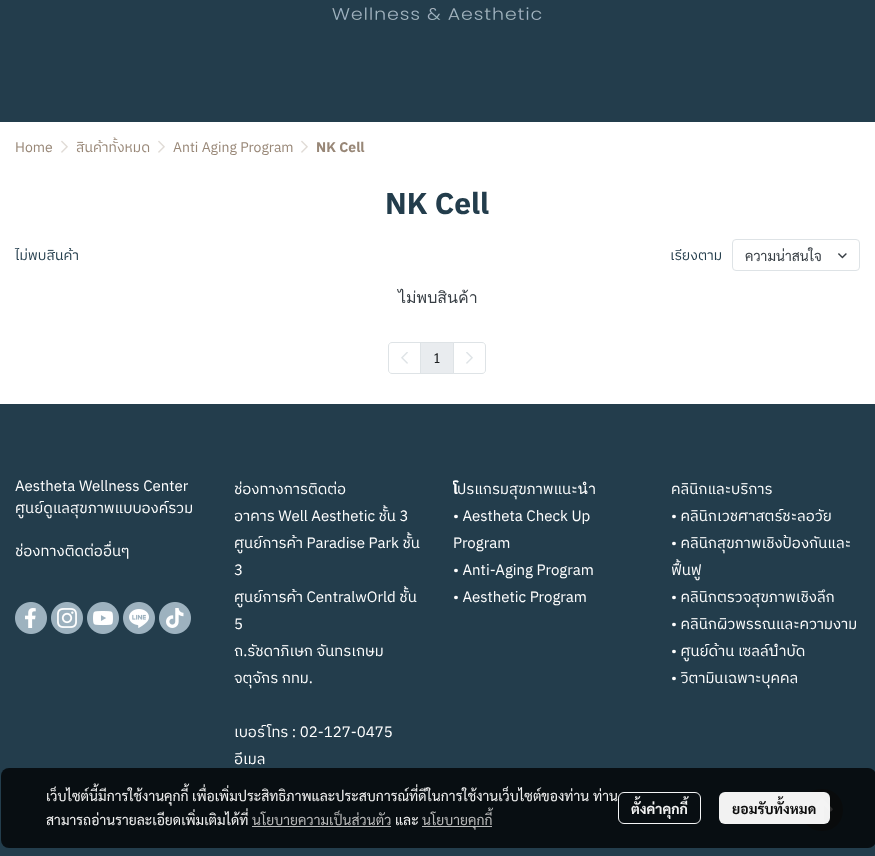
<?xml version="1.0" encoding="UTF-8"?>
<svg xmlns="http://www.w3.org/2000/svg" width="875" height="856">
    <defs>
        <clipPath id="clip1"><rect x="15" y="466" width="189" height="106"/></clipPath>
        <clipPath id="clip2"><rect x="234" y="466" width="189" height="371"/></clipPath>
        <clipPath id="clip3"><rect x="453" y="466" width="188" height="155"/></clipPath>
        <clipPath id="clip4"><rect x="671" y="466" width="189" height="236"/></clipPath>
    </defs>
    <rect width="100%" height="100%" fill="#FFFFFF"/>
    <rect x="0" y="0" width="875" height="122" fill="#233D4C"/>
    <image x="332" y="7" width="210" height="13" href="img_01.png"/>
    <text x="15" y="152" font-family="IBM Plex Sans Thai" font-size="14" fill="#988777">Home</text>
    <image x="61" y="140" width="7" height="13" href="img_02.png"/>
    <text x="76" y="152" font-family="IBM Plex Sans Thai" font-size="14" fill="#988777">สินค้าทั้งหมด</text>
    <image x="158" y="140" width="7" height="13" href="img_02.png"/>
    <text x="173" y="152" font-family="IBM Plex Sans Thai" font-size="14" fill="#988777">Anti Aging Program</text>
    <image x="301" y="140" width="7" height="13" href="img_02.png"/>
    <text x="316" y="152" font-family="IBM Plex Sans Thai" font-size="14" font-weight="700" fill="#988777">NK Cell</text>
    <text x="385" y="214" font-family="IBM Plex Sans Thai" font-size="30" font-weight="700" fill="#233D4C">NK Cell</text>
    <text x="15" y="260" font-family="IBM Plex Sans Thai" font-size="14" fill="#233D4C">ไม่พบสินค้า</text>
    <text x="670" y="260" font-family="IBM Plex Sans Thai" font-size="14" fill="#233D4C">เรียงตาม</text>
    <rect x="732.5" y="239.5" width="127" height="31" rx="3.5" fill="none" stroke="#DEE3E6"/>
    <text x="745" y="261" font-family="Sarabun" font-size="14" fill="#373E44">ความน่าสนใจ</text>
    <image x="838" y="253" width="9" height="6" href="img_03.png"/>
    <text x="398" y="303" font-family="Loma" font-size="16" fill="#373E44">ไม่พบสินค้า</text>
    <path d="M 392 342.5 H 420.5 V 373.5 H 392 C 390 373.5 388.5 372 388.5 370 V 346 C 388.5 344 390 342.5 392 342.5 Z" fill="none" stroke="#DEE3E6"/>
    <image x="401" y="352" width="7" height="12" href="img_04.png"/>
    <rect x="420.5" y="342.5" width="33" height="31" fill="#E9ECEF" stroke="#DEE3E6"/>
    <text x="433" y="363" font-family="Sarabun" font-size="14" fill="#1C1F21">1</text>
    <path d="M 453.5 342.5 H 482 C 484 342.5 485.5 344 485.5 346 V 370 C 485.5 372 484 373.5 482 373.5 H 453.5 Z" fill="#FFFFFF" stroke="#DEE3E6"/>
    <image x="466" y="352" width="7" height="12" href="img_05.png"/>
    <rect x="0" y="404" width="875" height="452" fill="#233D4C"/>
    <text x="15" y="491" font-family="IBM Plex Sans Thai" font-size="15" fill="#FFFFFF">Aestheta Wellness Center</text>
    <g clip-path="url(#clip1)">
        <text x="15" y="513" font-family="IBM Plex Sans Thai" font-size="15" fill="#FFFFFF">ศูนย์ดูแลสุขภาพแบบองค์รวม</text>
        <text x="15" y="556" font-family="IBM Plex Sans Thai" font-size="15" fill="#FFFFFF">ช่องทางติดต่ออื่นๆ</text>
    </g>
    <image x="15" y="602" width="32" height="32" href="img_06.png"/>
    <image x="51" y="602" width="32" height="32" href="img_07.png"/>
    <image x="87" y="602" width="32" height="32" href="img_08.png"/>
    <image x="123" y="602" width="32" height="32" href="img_09.png"/>
    <image x="159" y="602" width="32" height="32" href="img_10.png"/>
    <g clip-path="url(#clip2)">
        <text x="234" y="494" font-family="IBM Plex Sans Thai" font-size="15" fill="#FFFFFF">ช่องทางการติดต่อ</text>
    </g>
    <text x="234" y="521" font-family="IBM Plex Sans Thai" font-size="15" fill="#FFFFFF">อาคาร Well Aesthetic ชั้น 3</text>
    <g clip-path="url(#clip2)">
        <text x="234" y="548" font-family="IBM Plex Sans Thai" font-size="15" fill="#FFFFFF">ศูนย์การค้า Paradise Park ชั้น</text>
    </g>
    <text x="234" y="575" font-family="IBM Plex Sans Thai" font-size="15" fill="#FFFFFF">3</text>
    <g clip-path="url(#clip2)">
        <text x="234" y="602" font-family="IBM Plex Sans Thai" font-size="15" fill="#FFFFFF">ศูนย์การค้า CentralwOrld ชั้น</text>
    </g>
    <text font-family="IBM Plex Sans Thai" font-size="15" fill="#FFFFFF">
        <tspan x="234" y="629">5</tspan>
        <tspan x="234" y="656">ถ.รัชดาภิเษก จันทรเกษม</tspan>
        <tspan x="234" y="683">จตุจักร กทม.</tspan>
    </text>
    <text x="234" y="737" font-family="IBM Plex Sans Thai" font-size="15" fill="#FFFFFF">เบอร์โทร : 02-127-0475</text>
    <g clip-path="url(#clip2)">
        <text x="234" y="764" font-family="IBM Plex Sans Thai" font-size="15" fill="#FFFFFF">อีเมล</text>
    </g>
    <g clip-path="url(#clip3)">
        <text x="453" y="494" font-family="IBM Plex Sans Thai" font-size="15" font-weight="700" fill="#FFFFFF">โ</text>
    </g>
    <text x="457" y="494" font-family="IBM Plex Sans Thai" font-size="15" fill="#FFFFFF">ปรแกรมสุขภาพแนะนำ</text>
    <text font-family="IBM Plex Sans Thai" font-size="15" fill="#FFFFFF">
        <tspan x="453" y="521">• Aestheta Check Up</tspan>
        <tspan x="453" y="548">Program</tspan>
        <tspan x="453" y="575">• Anti-Aging Program</tspan>
        <tspan x="453" y="602">• Aesthetic Program</tspan>
    </text>
    <text font-family="IBM Plex Sans Thai" font-size="15" fill="#FFFFFF">
        <tspan x="671" y="494">คลินิกและบริการ</tspan>
        <tspan x="671" y="521">• คลินิกเวชศาสตร์ชะลอวัย</tspan>
        <tspan x="671" y="548">• คลินิกสุขภาพเชิงป้องกันและ</tspan>
    </text>
    <g clip-path="url(#clip4)">
        <text x="671" y="575" font-family="IBM Plex Sans Thai" font-size="15" fill="#FFFFFF">ฟื้นฟู</text>
    </g>
    <text font-family="IBM Plex Sans Thai" font-size="15" fill="#FFFFFF">
        <tspan x="671" y="602">• คลินิกตรวจสุขภาพเชิงลึก</tspan>
        <tspan x="671" y="629">• คลินิกผิวพรรณและความงาม</tspan>
        <tspan x="671" y="656">• ศูนย์ด้าน เซลล์บำบัด</tspan>
        <tspan x="671" y="683">• วิตามินเฉพาะบุคคล</tspan>
    </text>
    <path d="M 822 789 C 794 789 794 831 822 831 C 850 831 850 789 822 789 Z" fill="#293034"/>
    <image x="811" y="798" width="22" height="23" href="img_11.png"/>
    <rect x="1" y="768" width="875" height="80" rx="8" fill="#000000" fill-opacity="0.76"/>
    <text x="46" y="801" font-family="Sarabun" font-size="14" fill="#F3F3F3">เว็บไซต์นี้มีการใช้งานคุกกี้ เพื่อเพิ่มประสิทธิภาพและประสบการณ์ที่ดีในการใช้งานเว็บไซต์ของท่าน</text>
    <text x="593" y="801" font-family="Sarabun" font-size="14" fill="#F3F3F3">ท่าน</text>
    <text x="46" y="825" font-family="Sarabun" font-size="14" fill="#F3F3F3">สามารถอ่านรายละเอียดเพิ่มเติมได้ที่</text>
    <text x="252" y="825" font-family="Sarabun" font-size="14" fill="#B9B9B9">นโยบายความเป็นส่วนตัว</text>
    <text x="395" y="825" font-family="Sarabun" font-size="14" fill="#F3F3F3">และ</text>
    <rect x="252" y="826" width="139" height="1" fill="#BABBBC"/>
    <rect x="422" y="826" width="70" height="1" fill="#BABBBC"/>
    <text x="422" y="825" font-family="Sarabun" font-size="14" fill="#B9B9B9">นโยบายคุกกี้</text>
    <rect x="618.5" y="792.5" width="82" height="31" rx="5.5" fill="none" stroke="#F4F5F6"/>
    <text x="631" y="814" font-family="Sarabun" font-size="14" font-weight="700" fill="#F3F3F3">ตั้งค่าคุกกี้</text>
    <rect x="719" y="792" width="111" height="32" rx="6" fill="#FFFFFF" fill-opacity="0.95"/>
    <text x="732" y="814" font-family="Sarabun" font-size="14" font-weight="700" fill="#0C0C0C">ยอมรับทั้งหมด</text>
</svg>
